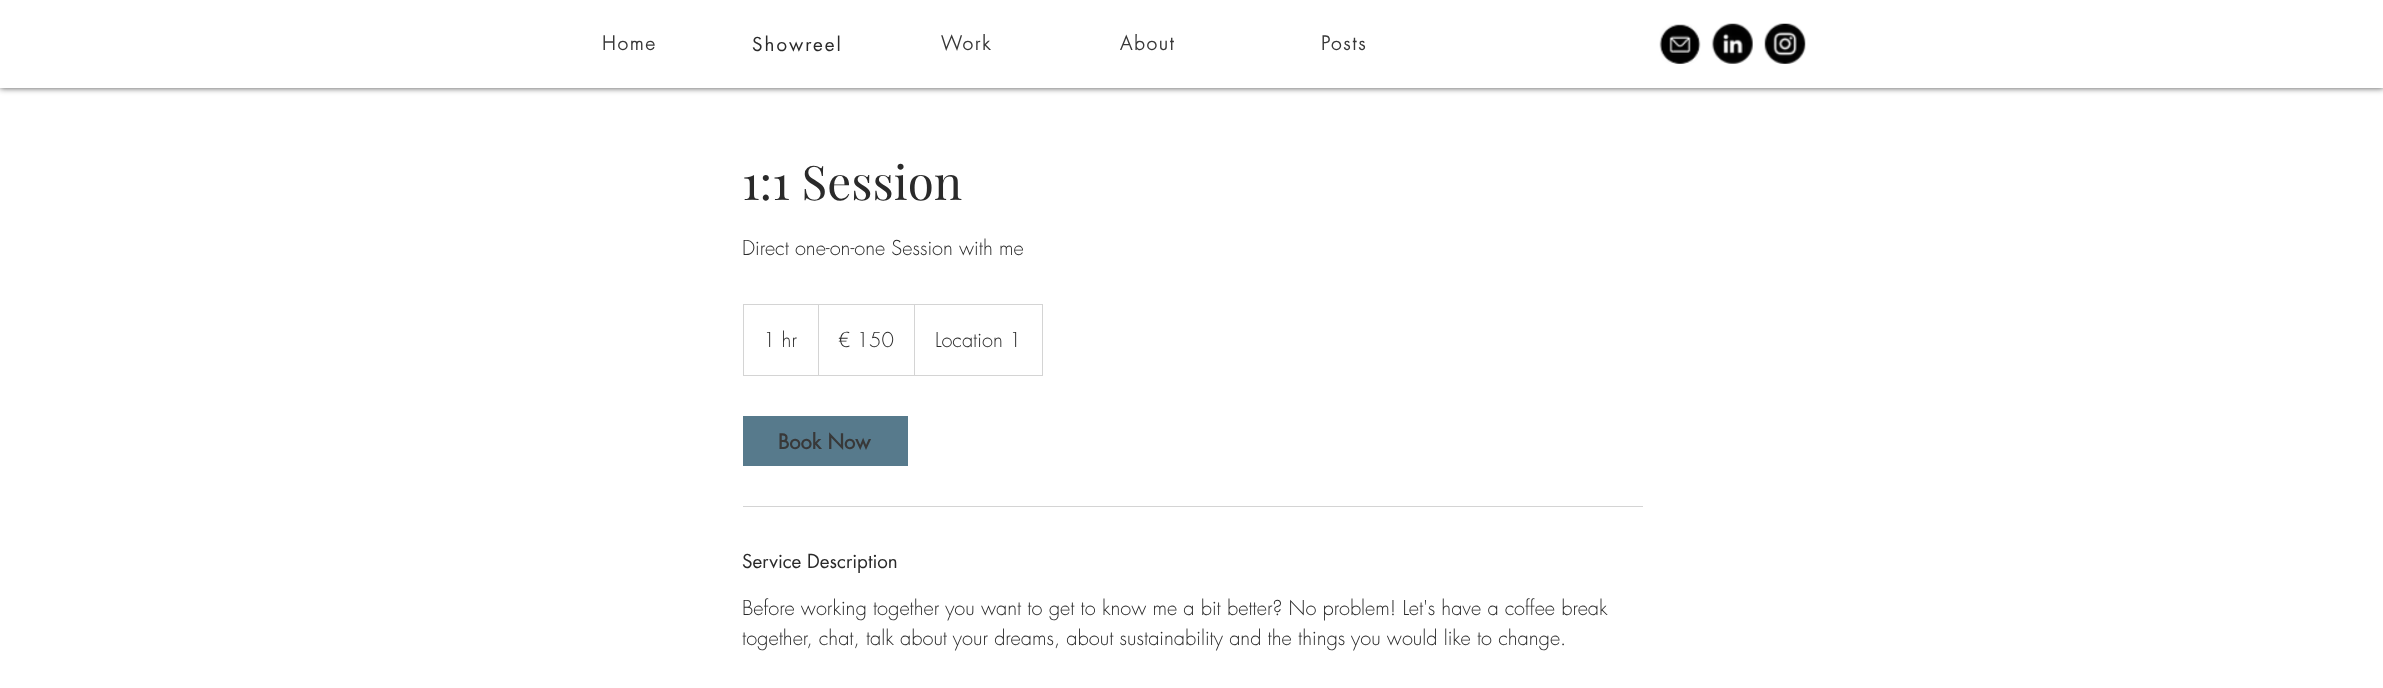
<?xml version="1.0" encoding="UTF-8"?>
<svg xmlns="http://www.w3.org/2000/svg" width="2383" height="688">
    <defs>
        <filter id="blur1" x="-50%" y="-200%" width="200%" height="500%"><feGaussianBlur stdDeviation="3"/></filter>
    </defs>
    <rect width="100%" height="100%" fill="#FFFFFF"/>
    <rect x="0" y="0" width="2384" height="88" fill="#000000" fill-opacity="0.7" filter="url(#blur1)"/>
    <rect x="0" y="0" width="2383" height="88" fill="#FFFFFF"/>
    <text x="602" y="50" font-family="'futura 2'" font-size="18.75" font-weight="700" letter-spacing="2" fill="#383838">Home</text>
    <text x="752" y="51" font-family="futura" font-size="18.75" letter-spacing="2" fill="#2A2A2A">Showreel</text>
    <text x="941" y="50" font-family="'futura 2'" font-size="18.75" font-weight="700" letter-spacing="2" fill="#383838">Work</text>
    <text x="1120" y="50" font-family="'futura 2'" font-size="18.75" font-weight="700" letter-spacing="2" fill="#383838">About</text>
    <text x="1321" y="50" font-family="'futura 2'" font-size="18.75" font-weight="700" letter-spacing="2" fill="#383838">Posts</text>
    <image x="1659" y="24" width="42" height="40" href="img_01.png"/>
    <image x="1711" y="23" width="42" height="41" href="img_02.png"/>
    <image x="1764" y="23" width="42" height="41" href="img_03.png"/>
    <text x="742" y="200" font-family="Playfair Display" font-size="47.5" fill="#2A2A2A">1:1 Session</text>
    <text x="742" y="255" font-family="futura" font-size="20" font-weight="300" fill="#2A2A2A">Direct one-on-one Session with me</text>
    <rect x="743.5" y="304.5" width="299" height="71" fill="none" stroke="#D4D4D4"/>
    <text x="763" y="347" font-family="futura" font-size="20" font-weight="300" fill="#2A2A2A">1 hr</text>
    <path d="M 818 375 V 304 L 819 305 V 375 Z" fill="#D4D4D4"/>
    <text x="838" y="347" font-family="futura" font-size="20" font-weight="300" fill="#2A2A2A">€ 150</text>
    <path d="M 914 375 V 304 L 915 305 V 375 Z" fill="#D4D4D4"/>
    <text x="935" y="347" font-family="futura" font-size="20" font-weight="300" fill="#2A2A2A">Location 1</text>
    <rect x="743" y="416" width="165" height="50" fill="#577A8C"/>
    <text x="778" y="449" font-family="futura" font-size="20" font-weight="700" fill="#383838">Book Now</text>
    <rect x="743" y="506" width="900" height="1" fill="#D4D4D4"/>
    <text x="742" y="568" font-family="futura" font-size="18.75" fill="#2A2A2A">Service Description</text>
    <text font-family="futura" font-size="20" font-weight="300" fill="#2A2A2A">
        <tspan x="742" y="615">Before working together you want to get to know me a bit better? No problem! Let's have a coffee break</tspan>
        <tspan x="742" y="645">together, chat, talk about your dreams, about sustainability and the things you would like to change.</tspan>
    </text>
</svg>
